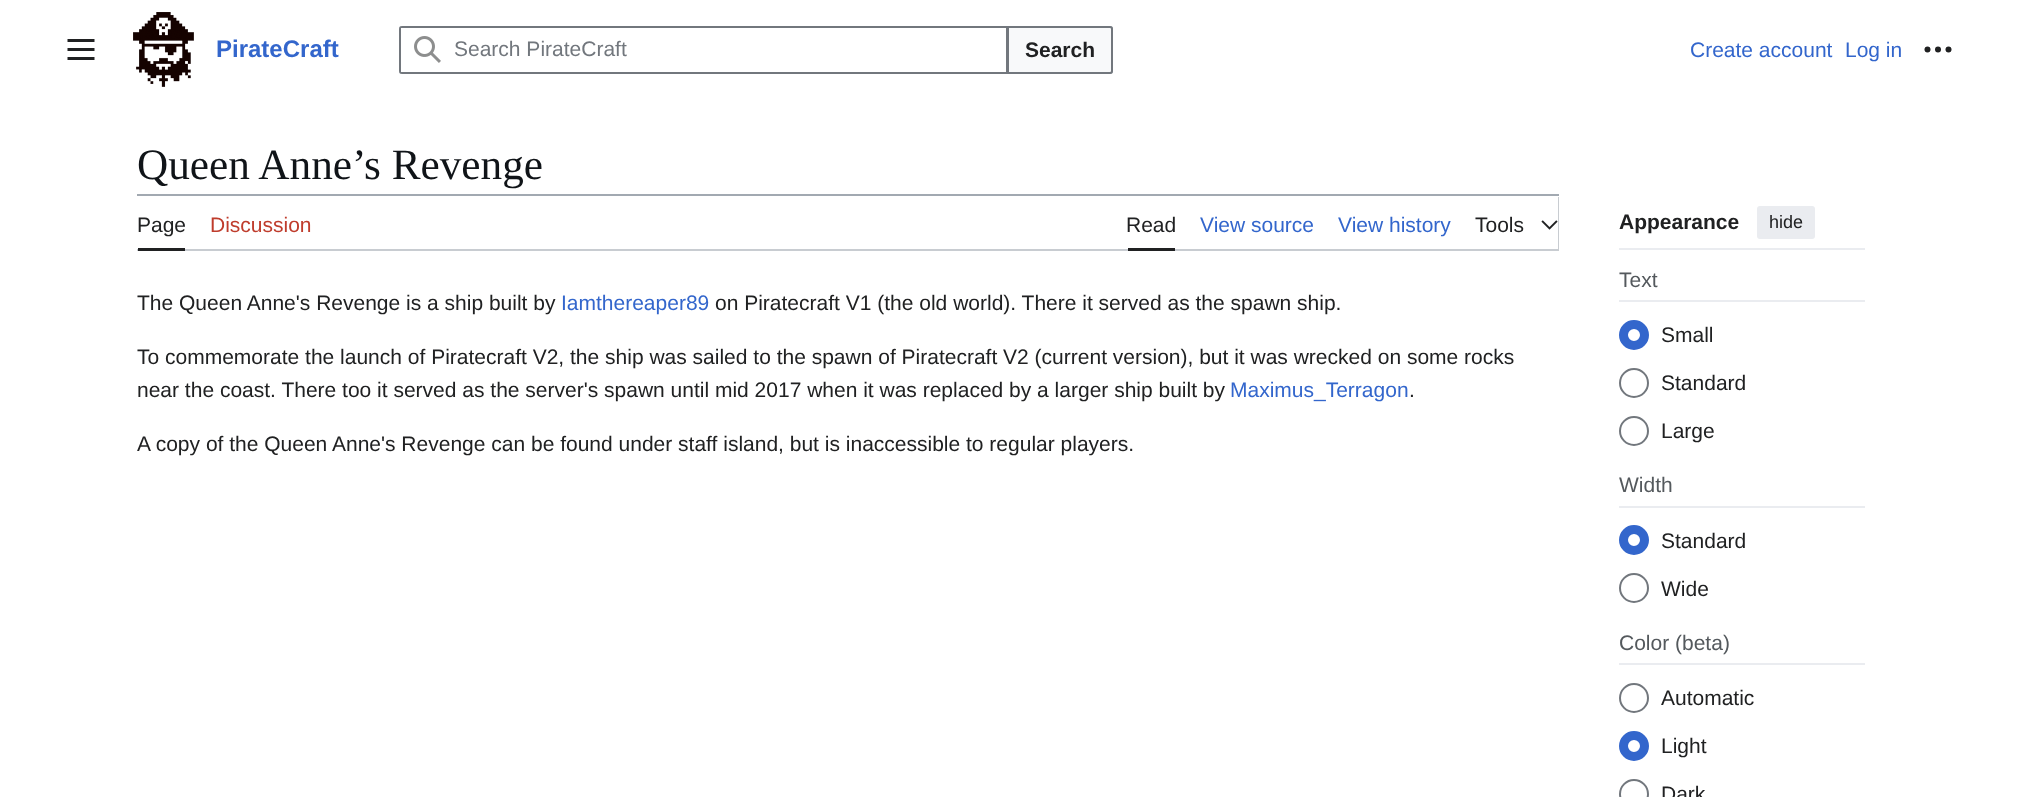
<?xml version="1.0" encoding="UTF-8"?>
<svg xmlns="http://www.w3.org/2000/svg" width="2025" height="797">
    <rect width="100%" height="100%" fill="#FFFFFF"/>
    <image x="67" y="39" width="28" height="21" href="img_01.png"/>
    <image x="133" y="12" width="61" height="75" href="img_02.png"/>
    <text x="216" y="57" font-family="Liberation Sans" font-size="24" font-weight="700" fill="#3366CC">PirateCraft</text>
    <rect x="400" y="27" width="712" height="46" rx="2" fill="none" stroke="#A2A9B1" stroke-width="2"/>
    <path d="M 1008 27 H 1110 C 1111 27 1112 28 1112 29 V 71 C 1112 72 1111 73 1110 73 H 1008 Z" fill="#F8F9FA" stroke="#72777D" stroke-width="2"/>
    <path d="M 402 26 H 1008 V 74 H 402 C 400.5 74 399 72.5 399 71 V 29 C 399 27.5 400.5 26 402 26 Z" fill="#FFFFFF"/>
    <path d="M 402 26 C 400 26 399 27 399 29 V 71 C 399 73 400 74 402 74 H 1008 V 26 Z M 401 28 V 72 H 1006 V 28 Z" fill="#72777D" fill-rule="evenodd"/>
    <image x="414" y="36" width="27" height="27" href="img_03.png"/>
    <text x="454" y="56" font-family="Liberation Sans" font-size="21" fill="#72777D">Search PirateCraft</text>
    <text x="1025" y="57" font-family="Liberation Sans" font-size="21" font-weight="700" fill="#202122">Search</text>
    <text x="1690" y="57" font-family="Liberation Sans" font-size="21" fill="#3366CC">Create account</text>
    <text x="1845" y="57" font-family="Liberation Sans" font-size="21" fill="#3366CC">Log in</text>
    <image x="1924" y="46" width="28" height="7" href="img_04.png"/>
    <text x="137" y="179" font-family="Liberation Serif" font-size="43.25" fill="#101418">Queen Anne’s Revenge</text>
    <rect x="137" y="194" width="1422" height="2" fill="#A2A9B1"/>
    <path d="M 137 249 V 251 H 1559 V 197 H 1558 V 249 Z" fill="#C8CCD1"/>
    <rect x="138" y="248" width="47" height="3" fill="#202122"/>
    <text x="137" y="232" font-family="Liberation Sans" font-size="21" fill="#202122">Page</text>
    <text x="210" y="232" font-family="Liberation Sans" font-size="21" fill="#BF3C2C">Discussion</text>
    <rect x="1128" y="248" width="47" height="3" fill="#202122"/>
    <text x="1126" y="232" font-family="Liberation Sans" font-size="21" fill="#202122">Read</text>
    <text x="1200" y="232" font-family="Liberation Sans" font-size="21" fill="#3366CC">View source</text>
    <text x="1338" y="232" font-family="Liberation Sans" font-size="21" fill="#3366CC">View history</text>
    <text x="1475" y="232" font-family="Liberation Sans" font-size="21" fill="#202122">Tools</text>
    <image x="1541" y="220" width="17" height="10" href="img_05.png"/>
    <rect x="1619" y="248" width="246" height="2" fill="#EAECF0"/>
    <text x="1619" y="229" font-family="Liberation Sans" font-size="21" font-weight="700" fill="#202122">Appearance</text>
    <rect x="1757" y="206" width="58" height="33" rx="3" fill="#EAECF0"/>
    <text x="1769" y="228" font-family="Liberation Sans" font-size="18" fill="#202122">hide</text>
    <rect x="1619" y="300" width="246" height="2" fill="#EAECF0"/>
    <text x="1619" y="287" font-family="Liberation Sans" font-size="21" fill="#54595D">Text</text>
    <circle cx="1634" cy="335" r="10.5" fill="none" stroke="#3366CC" stroke-width="9"/>
    <text x="1661" y="342" font-family="Liberation Sans" font-size="21" fill="#202122">Small</text>
    <circle cx="1634" cy="383" r="14" fill="none" stroke="#72777D" stroke-width="2"/>
    <text x="1661" y="390" font-family="Liberation Sans" font-size="21" fill="#202122">Standard</text>
    <circle cx="1634" cy="431" r="14" fill="none" stroke="#72777D" stroke-width="2"/>
    <text x="1661" y="438" font-family="Liberation Sans" font-size="21" fill="#202122">Large</text>
    <rect x="1619" y="506" width="246" height="2" fill="#EAECF0"/>
    <text x="1619" y="492" font-family="Liberation Sans" font-size="21" fill="#54595D">Width</text>
    <circle cx="1634" cy="540" r="10.5" fill="none" stroke="#3366CC" stroke-width="9"/>
    <text x="1661" y="548" font-family="Liberation Sans" font-size="21" fill="#202122">Standard</text>
    <circle cx="1634" cy="588" r="14" fill="none" stroke="#72777D" stroke-width="2"/>
    <text x="1661" y="596" font-family="Liberation Sans" font-size="21" fill="#202122">Wide</text>
    <rect x="1619" y="663" width="246" height="2" fill="#EAECF0"/>
    <text x="1619" y="650" font-family="Liberation Sans" font-size="21" fill="#54595D">Color (beta)</text>
    <circle cx="1634" cy="698" r="14" fill="none" stroke="#72777D" stroke-width="2"/>
    <text x="1661" y="705" font-family="Liberation Sans" font-size="21" fill="#202122">Automatic</text>
    <circle cx="1634" cy="746" r="10.5" fill="none" stroke="#3366CC" stroke-width="9"/>
    <text x="1661" y="753" font-family="Liberation Sans" font-size="21" fill="#202122">Light</text>
    <circle cx="1634" cy="794" r="14" fill="none" stroke="#72777D" stroke-width="2"/>
    <text x="1661" y="801" font-family="Liberation Sans" font-size="21" fill="#202122">Dark</text>
    <text x="137" y="310" font-family="Liberation Sans" font-size="21" fill="#202122">The Queen Anne's Revenge is a ship built by</text>
    <text x="561" y="310" font-family="Liberation Sans" font-size="21" fill="#3366CC">Iamthereaper89</text>
    <text x="715" y="310" font-family="Liberation Sans" font-size="21" fill="#202122">on Piratecraft V1 (the old world). There it served as the spawn ship.</text>
    <text font-family="Liberation Sans" font-size="21" fill="#202122">
        <tspan x="137" y="364">To commemorate the launch of Piratecraft V2, the ship was sailed to the spawn of Piratecraft V2 (current version), but it was wrecked on some rocks</tspan>
        <tspan x="137" y="397">near the coast. There too it served as the server's spawn until mid 2017 when it was replaced by a larger ship built by</tspan>
    </text>
    <text x="1230" y="397" font-family="Liberation Sans" font-size="21" fill="#3366CC">Maximus_Terragon</text>
    <text x="1409" y="397" font-family="Liberation Sans" font-size="21" fill="#202122">.</text>
    <text x="137" y="451" font-family="Liberation Sans" font-size="21" fill="#202122">A copy of the Queen Anne's Revenge can be found under staff island, but is inaccessible to regular players.</text>
</svg>
